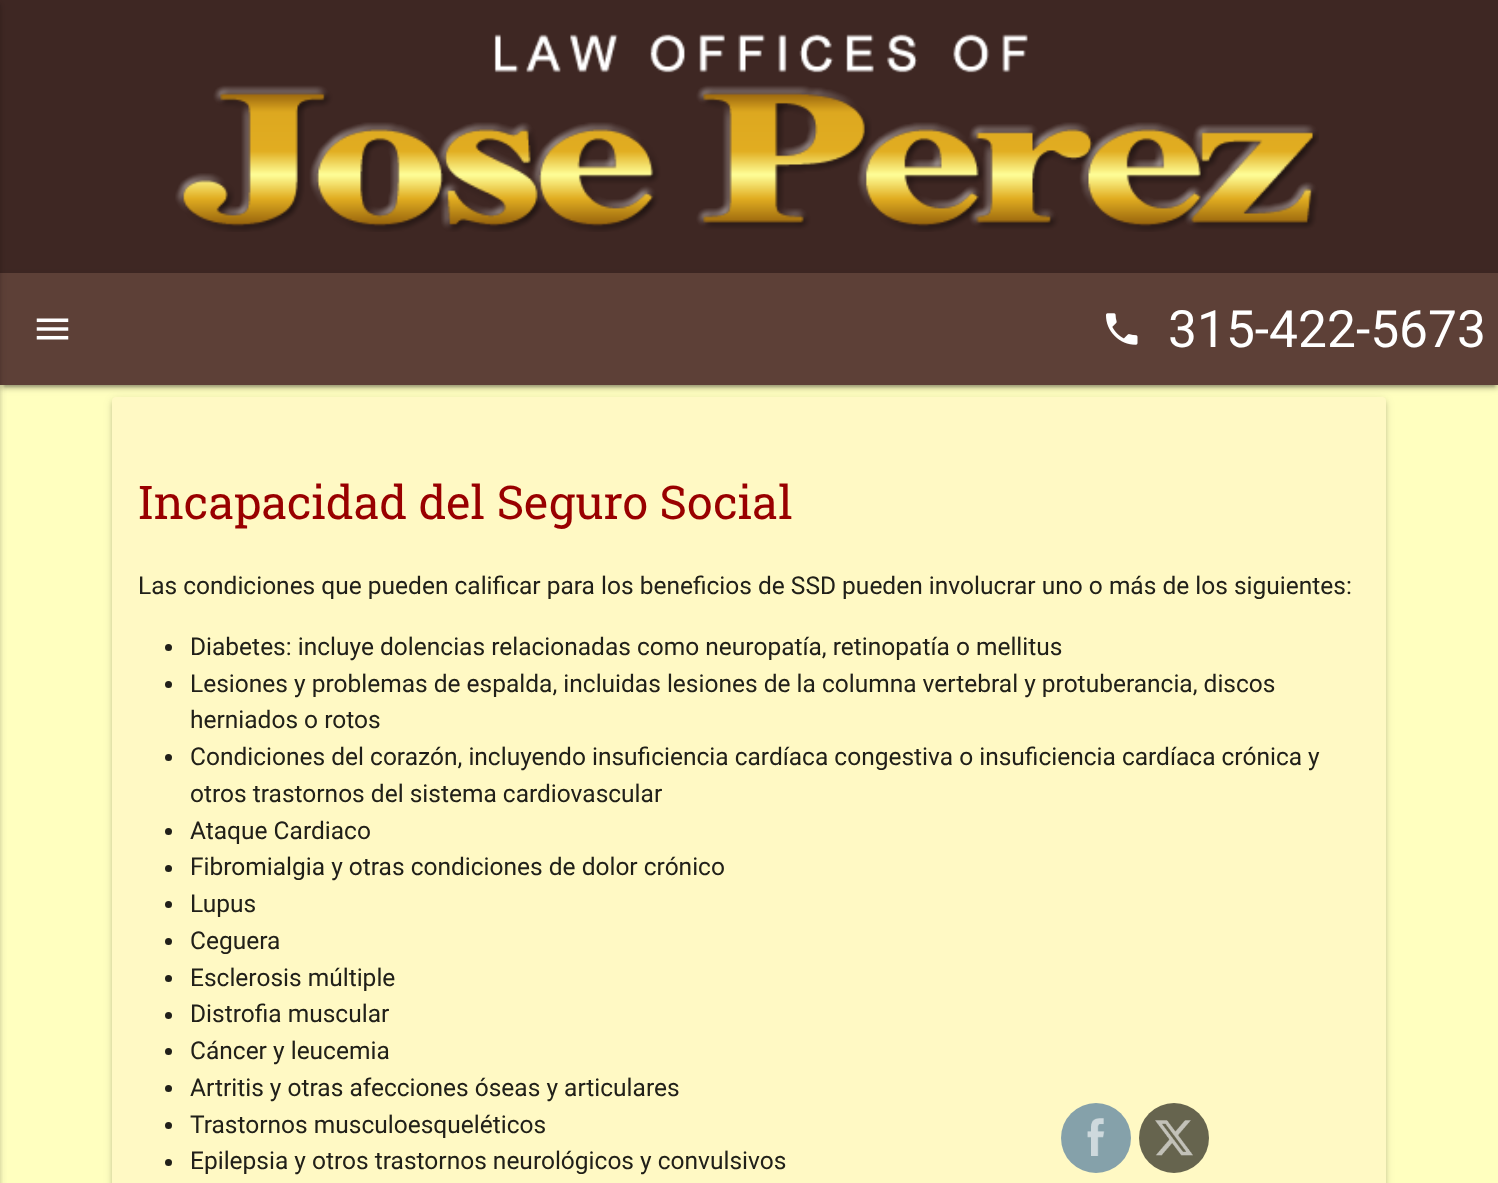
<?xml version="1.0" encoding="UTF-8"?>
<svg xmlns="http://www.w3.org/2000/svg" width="1498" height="1183">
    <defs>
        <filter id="blur1" x="-50%" y="-200%" width="200%" height="500%"><feGaussianBlur stdDeviation="1"/></filter>
        <filter id="blur2" x="-50%" y="-200%" width="200%" height="500%"><feGaussianBlur stdDeviation="4.5"/></filter>
        <filter id="blur3" x="-50%" y="-200%" width="200%" height="500%"><feGaussianBlur stdDeviation="2"/></filter>
    </defs>
    <rect width="100%" height="100%" fill="#FFFFBF"/>
    <rect x="0" y="0" width="1498" height="273" fill="#3E2723"/>
    <image x="175" y="34" width="1144" height="198" href="img_01.png"/>
    <rect x="4" y="282" width="1491" height="105" fill="#000000" fill-opacity="0.2" filter="url(#blur1)"/>
    <rect x="0" y="275" width="1498" height="112" fill="#000000" fill-opacity="0.12" filter="url(#blur2)"/>
    <rect x="0" y="277" width="1498" height="112" fill="#000000" fill-opacity="0.14" filter="url(#blur3)"/>
    <rect x="112" y="399" width="1274" height="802" rx="4" fill="#000000" fill-opacity="0.12" filter="url(#blur2)"/>
    <rect x="0" y="273" width="1498" height="112" fill="#5D4037"/>
    <rect x="-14" y="2" width="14" height="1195" fill="#000000" fill-opacity="0.12" filter="url(#blur2)"/>
    <rect x="-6" y="4" width="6" height="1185" fill="#000000" fill-opacity="0.14" filter="url(#blur3)"/>
    <image x="36" y="318" width="33" height="22" href="img_02.png"/>
    <image x="1106" y="313" width="32" height="32" href="img_03.png"/>
    <text x="1168" y="347" font-family="Roboto" font-size="51.5" fill="#FFFFFF">315-422-5673</text>
    <rect x="112" y="401" width="1274" height="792" rx="4" fill="#000000" fill-opacity="0.14" filter="url(#blur3)"/>
    <rect x="112" y="397" width="1274" height="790" rx="4" fill="#FFF9C4"/>
    <text x="138" y="519" font-family="Roboto Slab" font-size="46.5" fill="#990000">Incapacidad del Seguro Social</text>
    <text x="138" y="594" font-family="Roboto" font-size="24.5" fill="#212019">Las condiciones que pueden calificar para los beneficios de SSD pueden involucrar uno o más de los siguientes:</text>
    <circle cx="168.5" cy="647.5" r="3.5" fill="#212019"/>
    <text x="190" y="655" font-family="Roboto" font-size="24.5" fill="#212019">Diabetes: incluye dolencias relacionadas como neuropatía, retinopatía o mellitus</text>
    <circle cx="168.5" cy="684.5" r="3.5" fill="#212019"/>
    <text font-family="Roboto" font-size="24.5" fill="#212019">
        <tspan x="190" y="692">Lesiones y problemas de espalda, incluidas lesiones de la columna vertebral y protuberancia, discos</tspan>
        <tspan x="190" y="728">herniados o rotos</tspan>
    </text>
    <circle cx="168.5" cy="757.5" r="3.5" fill="#212019"/>
    <text font-family="Roboto" font-size="24.5" fill="#212019">
        <tspan x="190" y="765">Condiciones del corazón, incluyendo insuficiencia cardíaca congestiva o insuficiencia cardíaca crónica y</tspan>
        <tspan x="190" y="802">otros trastornos del sistema cardiovascular</tspan>
    </text>
    <circle cx="168.5" cy="831.5" r="3.5" fill="#212019"/>
    <text x="190" y="839" font-family="Roboto" font-size="24.5" fill="#212019">Ataque Cardiaco</text>
    <circle cx="168.5" cy="868.5" r="3.5" fill="#212019"/>
    <text x="190" y="875" font-family="Roboto" font-size="24.5" fill="#212019">Fibromialgia y otras condiciones de dolor crónico</text>
    <circle cx="168.5" cy="904.5" r="3.5" fill="#212019"/>
    <text x="190" y="912" font-family="Roboto" font-size="24.5" fill="#212019">Lupus</text>
    <circle cx="168.5" cy="941.5" r="3.5" fill="#212019"/>
    <text x="190" y="949" font-family="Roboto" font-size="24.5" fill="#212019">Ceguera</text>
    <circle cx="168.5" cy="978.5" r="3.5" fill="#212019"/>
    <text x="190" y="986" font-family="Roboto" font-size="24.5" fill="#212019">Esclerosis múltiple</text>
    <circle cx="168.5" cy="1015.5" r="3.5" fill="#212019"/>
    <text x="190" y="1022" font-family="Roboto" font-size="24.5" fill="#212019">Distrofia muscular</text>
    <circle cx="168.5" cy="1051.5" r="3.5" fill="#212019"/>
    <text x="190" y="1059" font-family="Roboto" font-size="24.5" fill="#212019">Cáncer y leucemia</text>
    <circle cx="168.5" cy="1088.5" r="3.5" fill="#212019"/>
    <text x="190" y="1096" font-family="Roboto" font-size="24.5" fill="#212019">Artritis y otras afecciones óseas y articulares</text>
    <circle cx="168.5" cy="1125.5" r="3.5" fill="#212019"/>
    <text x="190" y="1133" font-family="Roboto" font-size="24.5" fill="#212019">Trastornos musculoesqueléticos</text>
    <circle cx="168.5" cy="1162.5" r="3.5" fill="#212019"/>
    <text x="190" y="1169" font-family="Roboto" font-size="24.5" fill="#212019">Epilepsia y otros trastornos neurológicos y convulsivos</text>
    <circle cx="1096" cy="1138" r="35" fill="#85A1AA"/>
    <image x="1087" y="1118" width="18" height="38" href="img_04.png"/>
    <circle cx="1174" cy="1138" r="35" fill="#66644E"/>
    <image x="1155" y="1120" width="38" height="36" href="img_05.png"/>
</svg>
